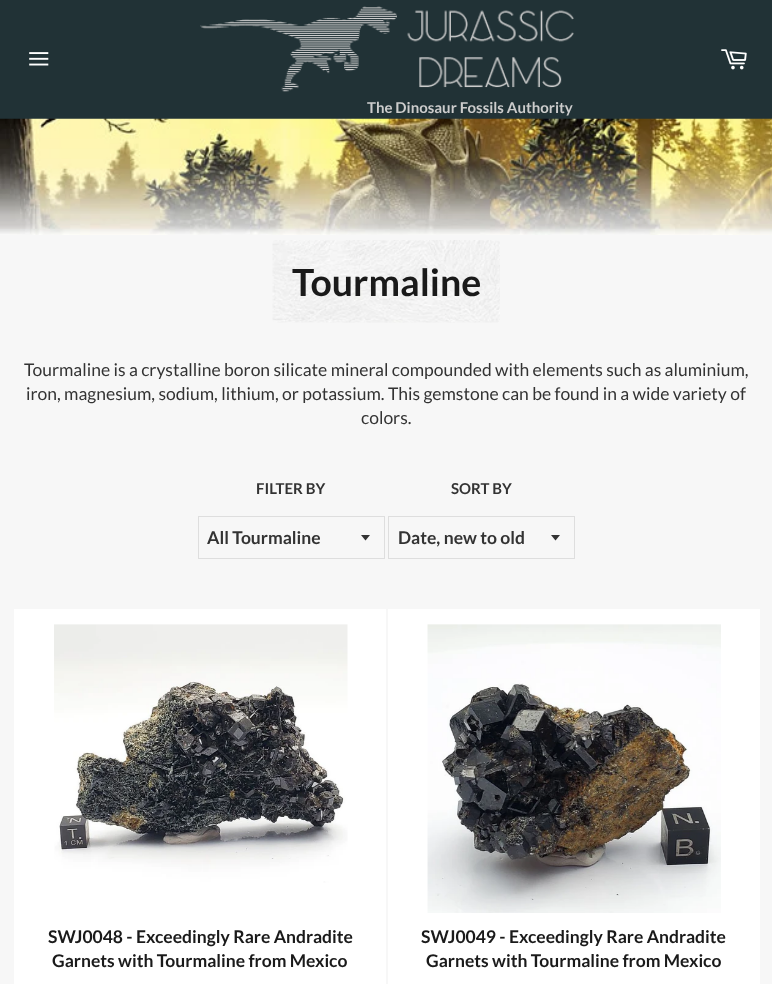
<?xml version="1.0" encoding="UTF-8"?>
<svg xmlns="http://www.w3.org/2000/svg" width="772" height="984">
    <rect width="100%" height="100%" fill="#F7F7F7"/>
    <rect x="0" y="0" width="772" height="119" fill="#213236"/>
    <image x="29" y="52" width="20" height="14" href="img_01.png"/>
    <image x="721" y="49" width="26" height="21" href="img_02.png"/>
    <image x="200" y="6" width="374" height="86" href="img_03.png"/>
    <text x="367" y="113" font-family="Lato" font-size="15" font-weight="700" fill="#CCCCCC">The Dinosaur Fossils Authority</text>
    <image x="0" y="118" width="772" height="117" href="img_04.png"/>
    <image x="272" y="240" width="228" height="83" href="img_05.png"/>
    <text x="292" y="296" font-family="Lato" font-size="37.5" font-weight="700" fill="#1A1A1A">Tourmaline</text>
    <text x="24" y="376" font-family="Lato" font-size="17.5" fill="#333333">Tourmaline is a crystalline boron silicate mineral compounded with elements such as aluminium,</text>
    <text x="26" y="400" font-family="Lato" font-size="17.5" fill="#333333">iron, magnesium, sodium, lithium, or potassium. This gemstone can be found in a wide variety of</text>
    <text x="361" y="424" font-family="Lato" font-size="17.5" fill="#333333">colors.</text>
    <text x="256" y="494" font-family="Lato" font-size="15" font-weight="700" fill="#333333">FILTER BY</text>
    <path d="M 361 535 L 365.5 540.5 L 370 535 Z" fill="#333333"/>
    <rect x="198.5" y="516.5" width="186" height="42" fill="none" stroke="#DEDEDE"/>
    <text x="207" y="544" font-family="Lato" font-size="17.5" font-weight="700" fill="#333333">All Tourmaline</text>
    <text x="451" y="494" font-family="Lato" font-size="15" font-weight="700" fill="#333333">SORT BY</text>
    <path d="M 551 535 L 555.5 540.5 L 560 535 Z" fill="#333333"/>
    <rect x="388.5" y="516.5" width="186" height="42" fill="none" stroke="#DEDEDE"/>
    <text x="398" y="544" font-family="Lato" font-size="17.5" font-weight="700" fill="#333333">Date, new to old</text>
    <rect x="14" y="609" width="372" height="375" fill="#FFFFFF"/>
    <image x="54" y="624" width="294" height="259" href="img_06.png"/>
    <text x="48" y="943" font-family="Lato" font-size="17.5" font-weight="700" fill="#1A1A1A">SWJ0048 - Exceedingly Rare Andradite</text>
    <text x="52" y="967" font-family="Lato" font-size="17.5" font-weight="700" fill="#1A1A1A">Garnets with Tourmaline from Mexico</text>
    <rect x="388" y="609" width="372" height="375" fill="#FFFFFF"/>
    <image x="427" y="624" width="294" height="289" href="img_07.png"/>
    <text x="421" y="943" font-family="Lato" font-size="17.5" font-weight="700" fill="#1A1A1A">SWJ0049 - Exceedingly Rare Andradite</text>
    <text x="426" y="967" font-family="Lato" font-size="17.5" font-weight="700" fill="#1A1A1A">Garnets with Tourmaline from Mexico</text>
</svg>
